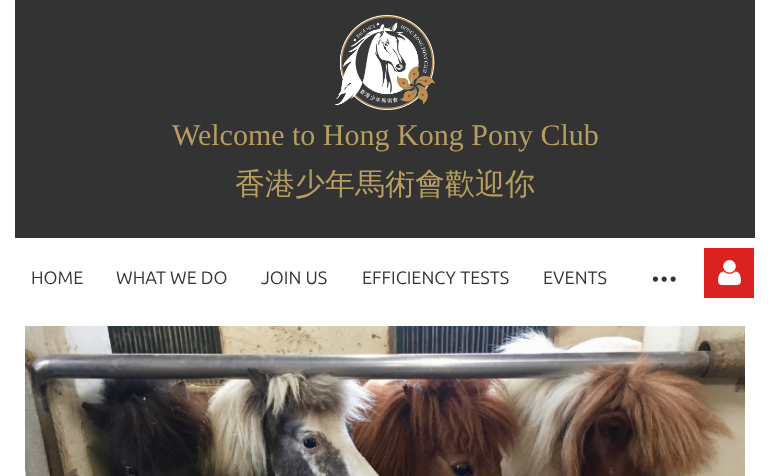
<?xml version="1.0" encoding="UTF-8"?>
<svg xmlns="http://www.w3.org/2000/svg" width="770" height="476">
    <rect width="100%" height="100%" fill="#FFFFFF"/>
    <rect x="15" y="0" width="740" height="238" fill="#333333"/>
    <image x="335" y="15" width="100" height="95" href="img_01.png"/>
    <text x="172" y="145" font-family="Liberation Serif" font-size="30" fill="#B79D60">Welcome to Hong Kong Pony Club</text>
    <text x="235" y="194" font-family="WenQuanYi Zen Hei" font-size="30" font-weight="500" fill="#B79D60">香港少年馬術會歡迎你</text>
    <text x="31" y="284" font-family="Ubuntu" font-size="18" fill="#333333">HOME</text>
    <text x="116" y="284" font-family="Ubuntu" font-size="18" fill="#333333">WHAT WE DO</text>
    <text x="261" y="284" font-family="Ubuntu" font-size="18" fill="#333333">JOIN US</text>
    <text x="362" y="284" font-family="Ubuntu" font-size="18" fill="#333333">EFFICIENCY TESTS</text>
    <text x="543" y="284" font-family="Ubuntu" font-size="18" fill="#333333">EVENTS</text>
    <text x="650" y="292" font-family="Ubuntu" font-size="44" letter-spacing="-2" fill="#333333">···</text>
    <rect x="704" y="248" width="50" height="50" fill="#DA2321"/>
    <image x="718" y="260" width="23" height="26" href="img_02.png"/>
    <image x="25" y="326" width="720" height="150" href="img_03.png"/>
</svg>
